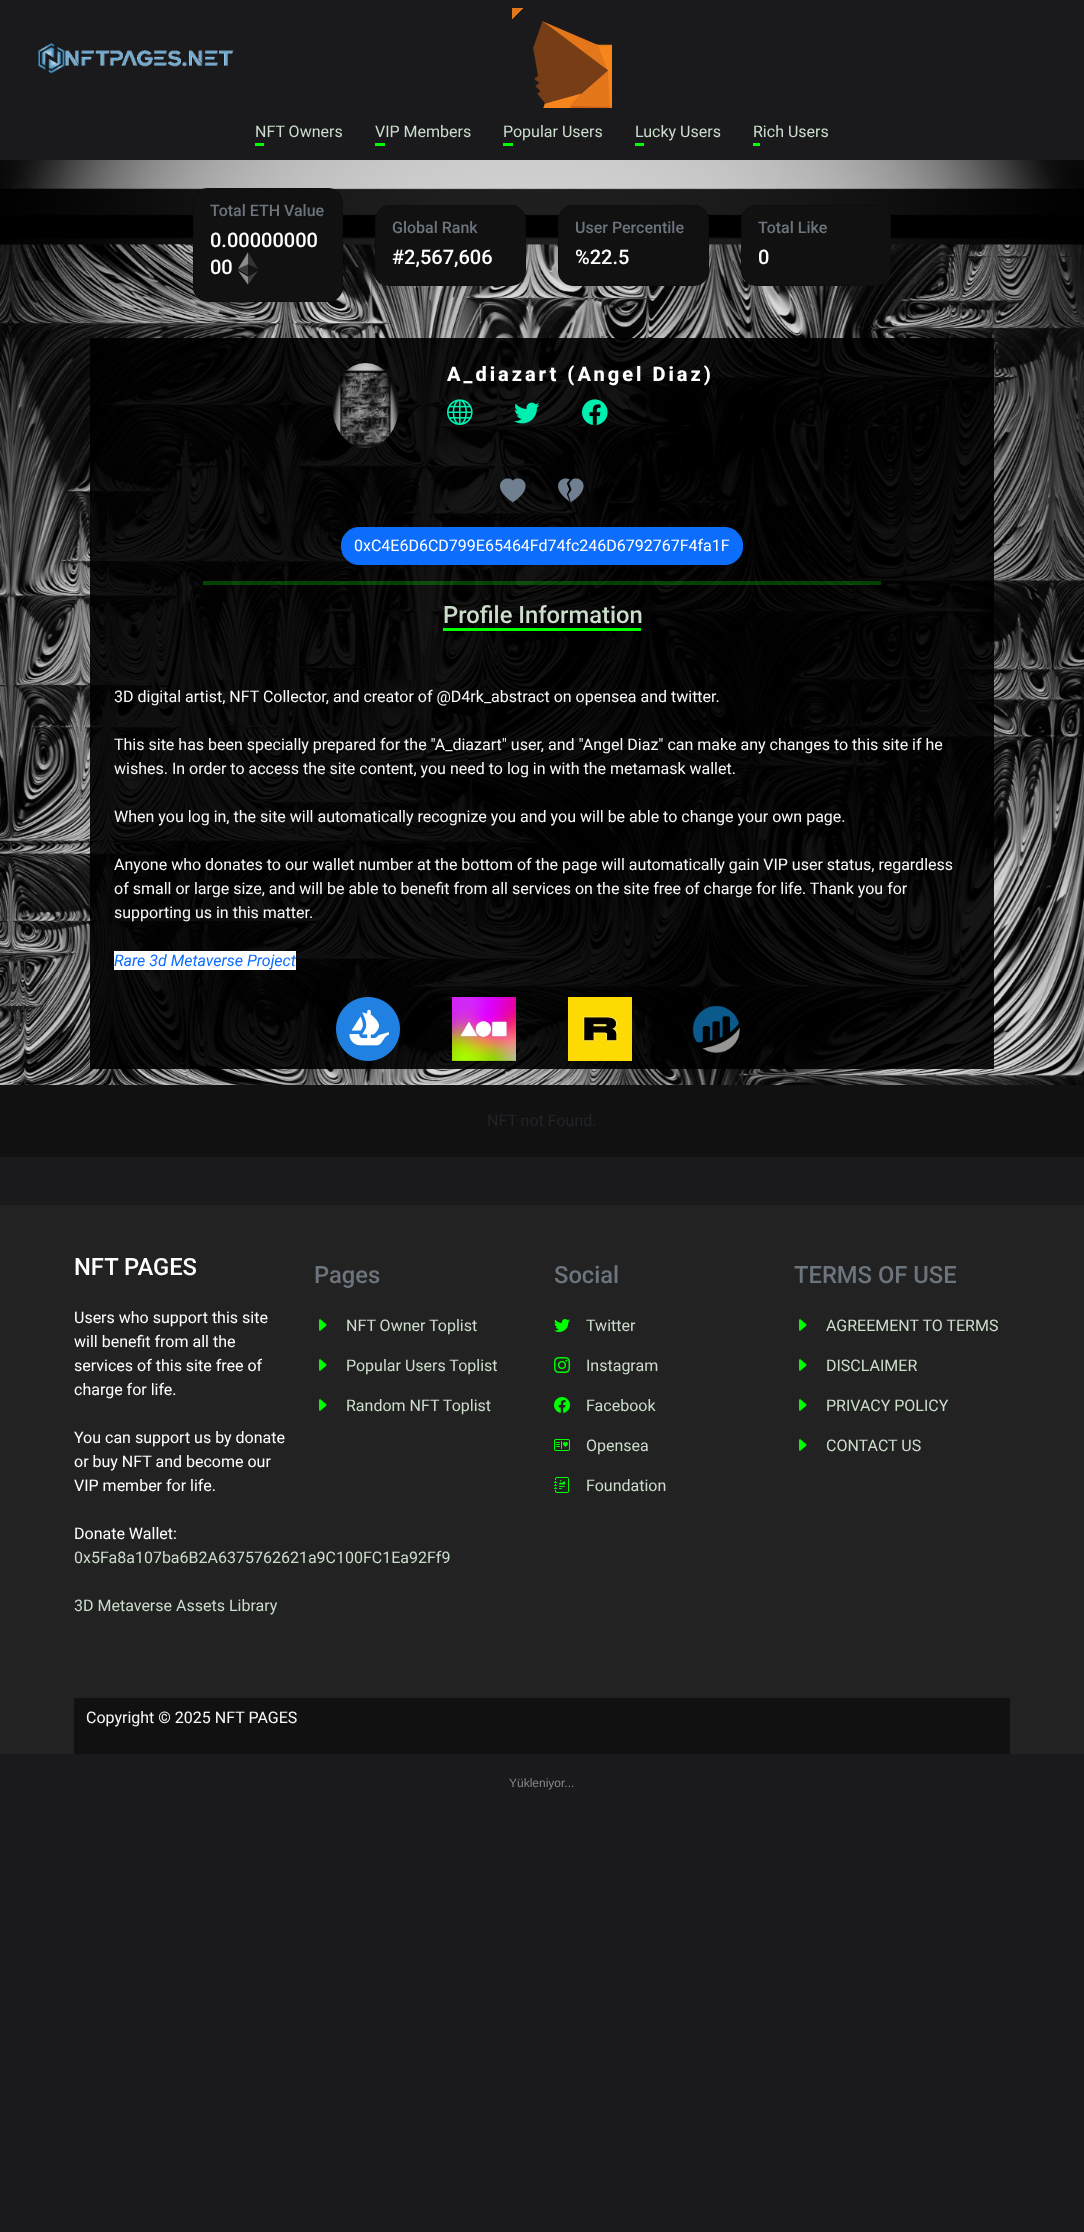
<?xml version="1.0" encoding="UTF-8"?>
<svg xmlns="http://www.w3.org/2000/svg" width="1084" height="2232">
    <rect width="100%" height="100%" fill="#1A1A1D"/>
    <image x="38" y="43" width="196" height="31" href="img_01.png"/>
    <image x="512" y="8" width="100" height="100" href="img_02.png"/>
    <text x="255" y="137" font-family="Roboto" font-size="16" fill="#CCDDCC">NFT Owners</text>
    <rect x="255" y="143" width="9" height="3" fill="#00FF00"/>
    <text x="375" y="137" font-family="Roboto" font-size="16" fill="#CCDDCC">VIP Members</text>
    <rect x="375" y="143" width="10" height="3" fill="#00FF00"/>
    <text x="503" y="137" font-family="Roboto" font-size="16" fill="#CCDDCC">Popular Users</text>
    <rect x="503" y="143" width="10" height="3" fill="#00FF00"/>
    <text x="635" y="137" font-family="Roboto" font-size="16" fill="#CCDDCC">Lucky Users</text>
    <rect x="635" y="143" width="9" height="3" fill="#00FF00"/>
    <text x="753" y="137" font-family="Roboto" font-size="16" fill="#CCDDCC">Rich Users</text>
    <rect x="753" y="143" width="7" height="3" fill="#00FF00"/>
    <image x="0" y="160" width="1084" height="925" href="img_03.png"/>
    <rect x="193" y="188" width="150" height="114" rx="15" fill="#111111"/>
    <rect x="193.5" y="188.5" width="149" height="113" rx="14.5" fill="none" stroke="#000000" stroke-opacity="0.12"/>
    <text x="210" y="216" font-family="Roboto" font-size="16" font-weight="500" fill="#6C757D">Total ETH Value</text>
    <text font-family="Roboto" font-size="20" font-weight="500" fill="#FFFFFF">
        <tspan x="210" y="247">0.00000000</tspan>
        <tspan x="210" y="274">00</tspan>
    </text>
    <image x="238" y="252" width="20" height="33" href="img_04.png"/>
    <rect x="375" y="205" width="151" height="81" rx="15" fill="#111111"/>
    <rect x="375.5" y="205.5" width="150" height="80" rx="14.5" fill="none" stroke="#000000" stroke-opacity="0.12"/>
    <text x="392" y="233" font-family="Roboto" font-size="16" font-weight="500" fill="#6C757D">Global Rank</text>
    <text x="392" y="264" font-family="Roboto" font-size="20" font-weight="500" fill="#FFFFFF">#2,567,606</text>
    <rect x="558" y="205" width="151" height="81" rx="15" fill="#111111"/>
    <rect x="558.5" y="205.5" width="150" height="80" rx="14.5" fill="none" stroke="#000000" stroke-opacity="0.12"/>
    <text x="575" y="233" font-family="Roboto" font-size="16" font-weight="500" fill="#6C757D">User Percentile</text>
    <text x="575" y="264" font-family="Roboto" font-size="20" font-weight="500" fill="#FFFFFF">%22.5</text>
    <rect x="741" y="205" width="150" height="81" rx="15" fill="#111111"/>
    <rect x="741.5" y="205.5" width="149" height="80" rx="14.5" fill="none" stroke="#000000" stroke-opacity="0.12"/>
    <text x="758" y="233" font-family="Roboto" font-size="16" font-weight="500" fill="#6C757D">Total Like</text>
    <text x="758" y="264" font-family="Roboto" font-size="20" font-weight="500" fill="#FFFFFF">0</text>
    <rect x="90" y="338" width="904" height="731" fill="#000000" fill-opacity="0.9"/>
    <image x="332" y="363" width="67" height="85" href="img_05.png"/>
    <text x="447" y="381" font-family="Roboto" font-size="20" font-weight="800" letter-spacing="3" fill="#FFFFFF">A_diazart (Angel Diaz)</text>
    <image x="447" y="399" width="26" height="26" href="img_06.png"/>
    <image x="514" y="402" width="26" height="22" href="img_07.png"/>
    <image x="582" y="399" width="26" height="26" href="img_08.png"/>
    <image x="500" y="478" width="26" height="25" href="img_09.png"/>
    <image x="558" y="478" width="26" height="25" href="img_10.png"/>
    <rect x="341.5" y="527.5" width="401" height="37" rx="17.5" fill="#0D6EFD" stroke="#0D6EFD"/>
    <text x="354" y="551" font-family="Roboto" font-size="16" fill="#FFFFFF">0xC4E6D6CD799E65464Fd74fc246D6792767F4fa1F</text>
    <rect x="203" y="581" width="678" height="4" fill="#00FF00" fill-opacity="0.25"/>
    <text x="443" y="623" font-family="Roboto" font-size="23.75" font-weight="500" fill="#CCDDCC">Profile Information</text>
    <rect x="443" y="628" width="198" height="3" fill="#00FF00"/>
    <text x="114" y="702" font-family="Roboto" font-size="16" fill="#F8F9FA">3D digital artist, NFT Collector, and creator of @D4rk_abstract on opensea and twitter.</text>
    <text font-family="Roboto" font-size="16" fill="#F8F9FA">
        <tspan x="114" y="750">This site has been specially prepared for the "A_diazart" user, and "Angel Diaz" can make any changes to this site if he</tspan>
        <tspan x="114" y="774">wishes. In order to access the site content, you need to log in with the metamask wallet.</tspan>
    </text>
    <text x="114" y="822" font-family="Roboto" font-size="16" fill="#F8F9FA">When you log in, the site will automatically recognize you and you will be able to change your own page.</text>
    <text font-family="Roboto" font-size="16" fill="#F8F9FA">
        <tspan x="114" y="870">Anyone who donates to our wallet number at the bottom of the page will automatically gain VIP user status, regardless</tspan>
        <tspan x="114" y="894">of small or large size, and will be able to benefit from all services on the site free of charge for life. Thank you for</tspan>
        <tspan x="114" y="918">supporting us in this matter.</tspan>
    </text>
    <rect x="114" y="951" width="182" height="19" fill="#FFFFFF"/>
    <text x="114" y="966" font-family="Roboto" font-size="16" font-style="italic" fill="#0D6EFD">Rare 3d Metaverse Project</text>
    <image x="336" y="997" width="64" height="64" href="img_11.png"/>
    <image x="452" y="997" width="64" height="64" href="img_12.png"/>
    <image x="568" y="997" width="64" height="64" href="img_13.png"/>
    <image x="692" y="1005" width="48" height="48" href="img_14.png"/>
    <rect x="0" y="1085" width="1084" height="72" fill="#111111"/>
    <text x="487" y="1126" font-family="Roboto" font-size="16" fill="#212529">NFT not Found.</text>
    <rect x="0" y="1205" width="1084" height="549" fill="#222222"/>
    <text x="74" y="1275" font-family="Roboto" font-size="23.75" font-weight="500" fill="#FFFFFF">NFT PAGES</text>
    <text font-family="Roboto" font-size="16" fill="#FFFFFF">
        <tspan x="74" y="1323">Users who support this site</tspan>
        <tspan x="74" y="1347">will benefit from all the</tspan>
        <tspan x="74" y="1371">services of this site free of</tspan>
        <tspan x="74" y="1395">charge for life.</tspan>
    </text>
    <text font-family="Roboto" font-size="16" fill="#FFFFFF">
        <tspan x="74" y="1443">You can support us by donate</tspan>
        <tspan x="74" y="1467">or buy NFT and become our</tspan>
        <tspan x="74" y="1491">VIP member for life.</tspan>
    </text>
    <text x="74" y="1539" font-family="Roboto" font-size="16" fill="#FFFFFF">Donate Wallet:</text>
    <text x="74" y="1563" font-family="Roboto" font-size="16" fill="#CCDDCC">0x5Fa8a107ba6B2A6375762621a9C100FC1Ea92Ff9</text>
    <text x="74" y="1611" font-family="Roboto" font-size="16" fill="#CCDDCC">3D Metaverse Assets Library</text>
    <text x="554" y="1283" font-family="Roboto" font-size="23.75" font-weight="500" fill="#6C757D">Social</text>
    <image x="554" y="1319" width="16" height="13" href="img_15.png"/>
    <text x="586" y="1331" font-family="Roboto" font-size="16" fill="#CCDDCC">Twitter</text>
    <image x="554" y="1357" width="16" height="16" href="img_16.png"/>
    <text x="586" y="1371" font-family="Roboto" font-size="16" fill="#CCDDCC">Instagram</text>
    <image x="554" y="1397" width="16" height="16" href="img_17.png"/>
    <text x="586" y="1411" font-family="Roboto" font-size="16" fill="#CCDDCC">Facebook</text>
    <image x="554" y="1439" width="16" height="12" href="img_18.png"/>
    <text x="586" y="1451" font-family="Roboto" font-size="16" fill="#CCDDCC">Opensea</text>
    <image x="554" y="1477" width="15" height="16" href="img_19.png"/>
    <text x="586" y="1491" font-family="Roboto" font-size="16" fill="#CCDDCC">Foundation</text>
    <text x="794" y="1283" font-family="Roboto" font-size="23.75" font-weight="500" fill="#6C757D">TERMS OF USE</text>
    <image x="799" y="1319" width="8" height="12" href="img_20.png"/>
    <text x="826" y="1331" font-family="Roboto" font-size="16" fill="#CCDDCC">AGREEMENT TO TERMS</text>
    <image x="799" y="1359" width="8" height="12" href="img_20.png"/>
    <text x="826" y="1371" font-family="Roboto" font-size="16" fill="#CCDDCC">DISCLAIMER</text>
    <image x="799" y="1399" width="8" height="12" href="img_20.png"/>
    <text x="826" y="1411" font-family="Roboto" font-size="16" fill="#CCDDCC">PRIVACY POLICY</text>
    <image x="799" y="1439" width="8" height="12" href="img_20.png"/>
    <text x="826" y="1451" font-family="Roboto" font-size="16" fill="#CCDDCC">CONTACT US</text>
    <text x="314" y="1283" font-family="Roboto" font-size="23.75" font-weight="500" fill="#6C757D">Pages</text>
    <image x="319" y="1319" width="8" height="12" href="img_20.png"/>
    <text x="346" y="1331" font-family="Roboto" font-size="16" fill="#CCDDCC">NFT Owner Toplist</text>
    <image x="319" y="1359" width="8" height="12" href="img_20.png"/>
    <text x="346" y="1371" font-family="Roboto" font-size="16" fill="#CCDDCC">Popular Users Toplist</text>
    <image x="319" y="1399" width="8" height="12" href="img_20.png"/>
    <text x="346" y="1411" font-family="Roboto" font-size="16" fill="#CCDDCC">Random NFT Toplist</text>
    <rect x="74" y="1698" width="936" height="56" fill="#111111"/>
    <text x="86" y="1723" font-family="Roboto" font-size="16" fill="#F8F9FA">Copyright © 2025 NFT PAGES</text>
    <text x="509" y="1787" font-family="Liberation Sans" font-size="12" fill="#888888">Yükleniyor...</text>
</svg>
